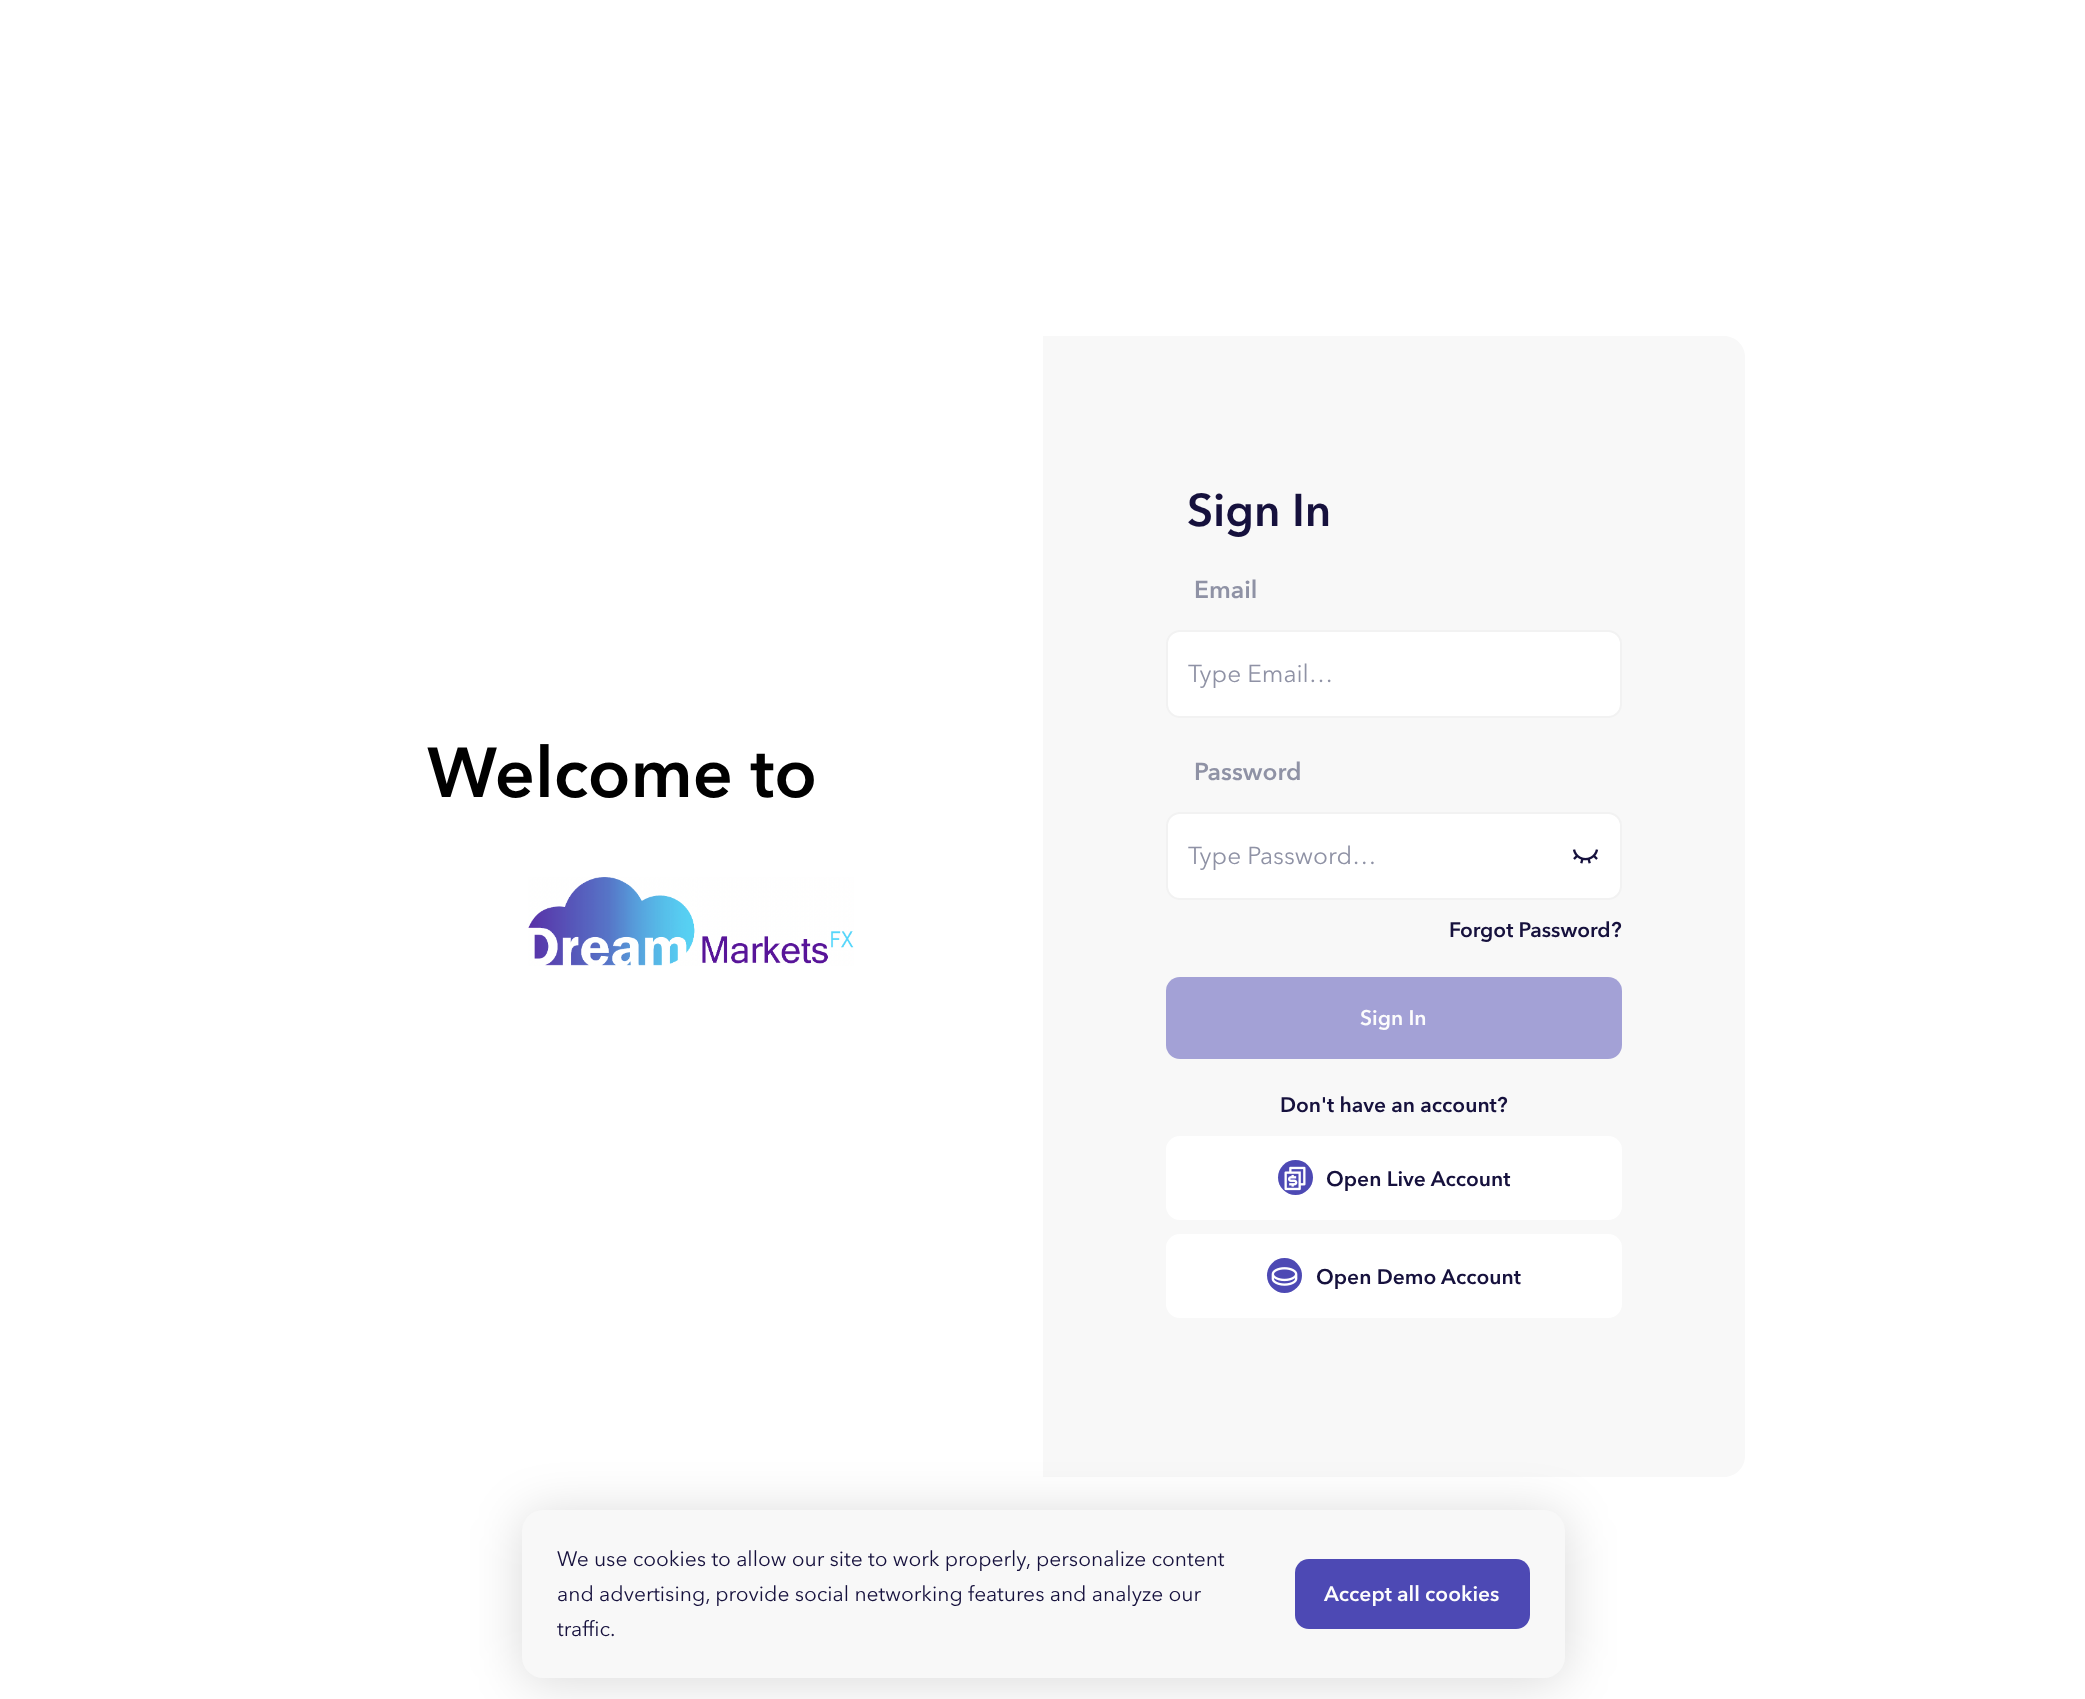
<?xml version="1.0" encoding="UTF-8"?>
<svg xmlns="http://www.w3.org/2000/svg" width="2085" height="1699">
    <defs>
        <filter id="blur1" x="-50%" y="-200%" width="200%" height="500%"><feGaussianBlur stdDeviation="26"/></filter>
    </defs>
    <rect width="100%" height="100%" fill="#FFFFFF"/>
    <text x="427" y="797" font-family="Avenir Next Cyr" font-size="70" font-weight="700" fill="#000000">Welcome to</text>
    <image x="528" y="877" width="326" height="89" href="img_01.png"/>
    <path d="M 1043 336 H 1724 C 1735.5 336 1745 345.5 1745 357 V 1456 C 1745 1467.5 1735.5 1477 1724 1477 H 1043 Z" fill="#F8F8F8"/>
    <text x="1187" y="526" font-family="Avenir Next Cyr" font-size="45.5" font-weight="700" fill="#16113D">Sign In</text>
    <text x="1194" y="598" font-family="Avenir Next Cyr" font-size="24.5" font-weight="700" fill="#8F92A5">Email</text>
    <rect x="1167" y="631" width="454" height="86" rx="13" fill="#FFFFFF" stroke="#F2F2F2" stroke-width="2"/>
    <text x="1188" y="682" font-family="Avenir Next Cyr" font-size="24.5" fill="#8F92A5">Type Email…</text>
    <text x="1194" y="780" font-family="Avenir Next Cyr" font-size="24.5" font-weight="700" fill="#8F92A5">Password</text>
    <rect x="1167" y="813" width="454" height="86" rx="13" fill="#FFFFFF" stroke="#F2F2F2" stroke-width="2"/>
    <text x="1188" y="864" font-family="Avenir Next Cyr" font-size="24.5" fill="#8F92A5">Type Password…</text>
    <image x="1572" y="849" width="27" height="15" href="img_02.png"/>
    <text x="1449" y="937" font-family="Avenir Next Cyr" font-size="21" font-weight="700" fill="#16113D">Forgot Password?</text>
    <rect x="1166" y="977" width="456" height="82" rx="14" fill="#A3A1D6"/>
    <text x="1360" y="1025" font-family="Avenir Next Cyr" font-size="21" font-weight="700" fill="#FCFCFC">Sign In</text>
    <text x="1280" y="1112" font-family="Avenir Next Cyr" font-size="21" font-weight="700" fill="#16113D">Don't have an account?</text>
    <rect x="1166" y="1136" width="456" height="84" rx="14" fill="#FFFFFF"/>
    <circle cx="1295.5" cy="1177.5" r="17.5" fill="#4D49B4"/>
    <image x="1284" y="1166" width="22" height="25" href="img_03.png"/>
    <text x="1326" y="1186" font-family="Avenir Next Cyr" font-size="21" font-weight="700" fill="#16113D">Open Live Account</text>
    <rect x="1166" y="1234" width="456" height="84" rx="14" fill="#FFFFFF"/>
    <circle cx="1284.5" cy="1275.5" r="17.5" fill="#4D49B4"/>
    <image x="1271" y="1267" width="27" height="19" href="img_04.png"/>
    <text x="1316" y="1284" font-family="Avenir Next Cyr" font-size="21" font-weight="700" fill="#16113D">Open Demo Account</text>
    <rect x="522" y="1514" width="1043" height="168" rx="21" fill="#000000" fill-opacity="0.15" filter="url(#blur1)"/>
    <rect x="522" y="1510" width="1043" height="168" rx="21" fill="#F8F8F8"/>
    <text font-family="Avenir Next Cyr" font-size="21" fill="#16113D">
        <tspan x="557" y="1566">We use cookies to allow our site to work properly, personalize content</tspan>
        <tspan x="557" y="1601">and advertising, provide social networking features and analyze our</tspan>
        <tspan x="557" y="1636">traffic.</tspan>
    </text>
    <rect x="1295" y="1559" width="235" height="70" rx="14" fill="#4D49B4"/>
    <text x="1324" y="1601" font-family="Avenir Next Cyr" font-size="21" font-weight="700" fill="#FCFCFC">Accept all cookies</text>
</svg>
